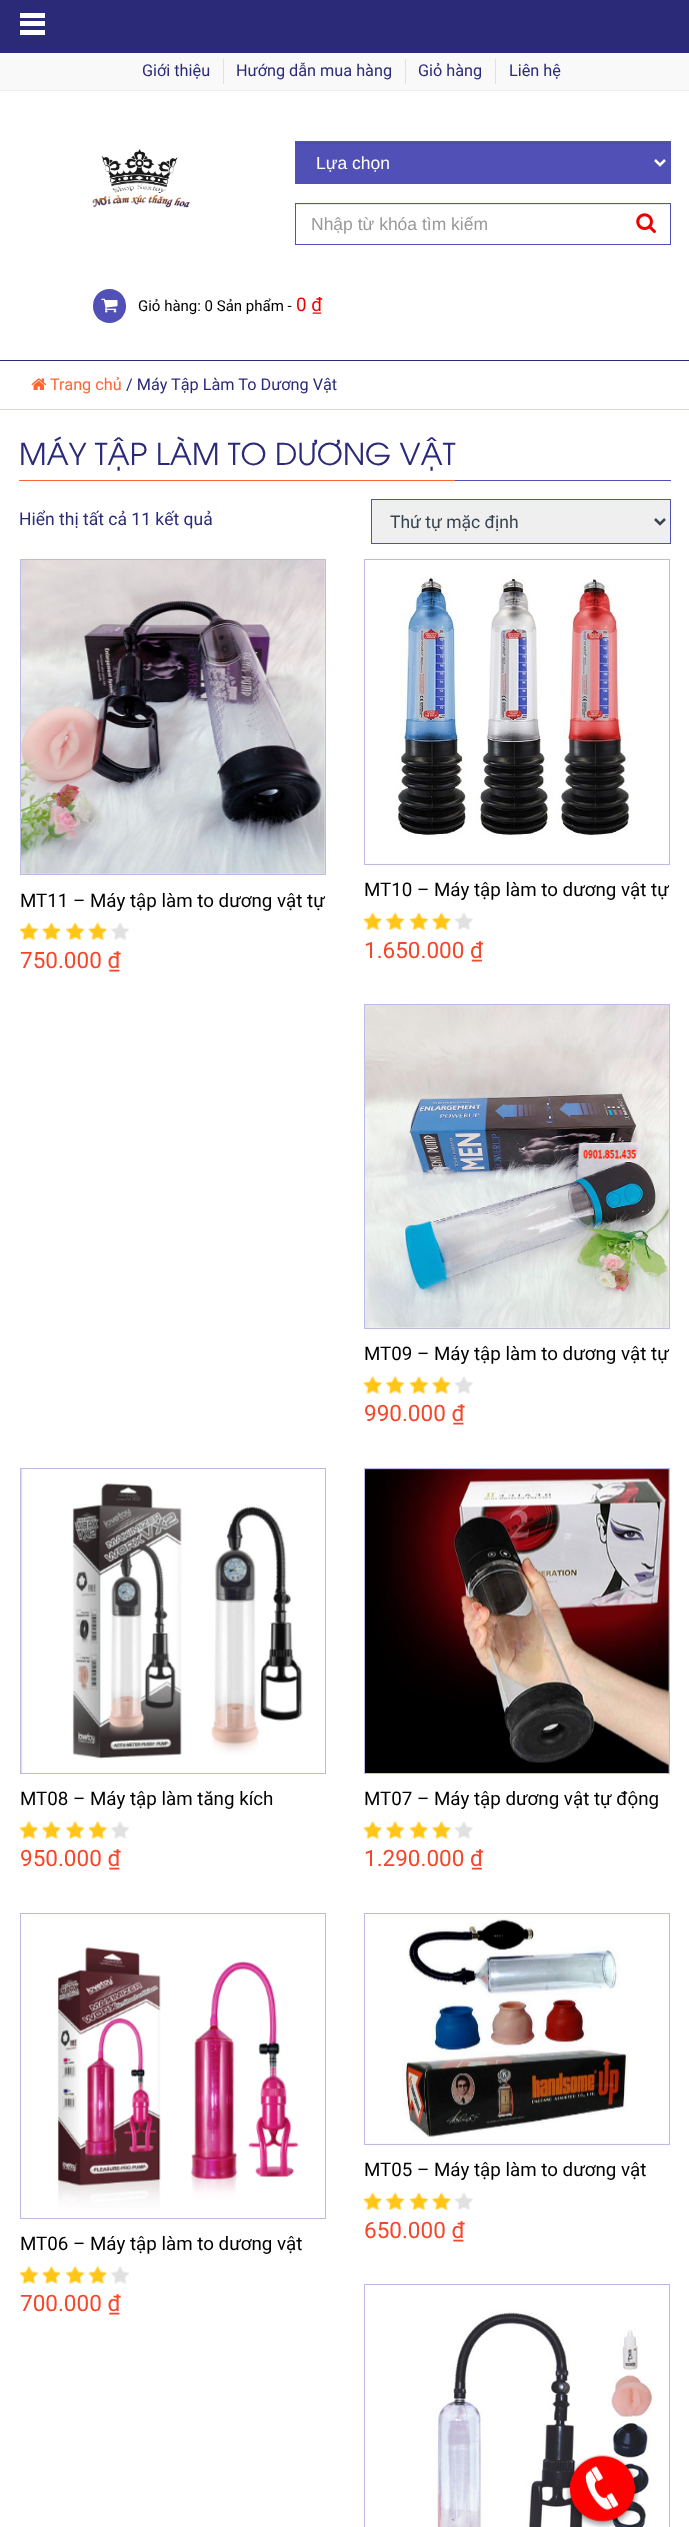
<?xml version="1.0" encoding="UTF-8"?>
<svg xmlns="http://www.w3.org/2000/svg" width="689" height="2527">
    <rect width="100%" height="100%" fill="#FFFFFF"/>
    <rect x="0" y="0" width="689" height="53" fill="#2B2A79"/>
    <rect x="20" y="13" width="25" height="5" fill="#FFFFFF"/>
    <rect x="20" y="21" width="25" height="5" fill="#FFFFFF"/>
    <rect x="20" y="30" width="25" height="5" fill="#FFFFFF"/>
    <rect x="0" y="53" width="689" height="37" fill="#F9F9F9"/>
    <rect x="0" y="90" width="689" height="1" fill="#EDEDED"/>
    <rect x="223" y="59" width="1" height="25" fill="#E1E1E1"/>
    <text x="142" y="76" font-family="Roboto" font-size="16.25" fill="#2B2A79">Giới thiệu</text>
    <rect x="405" y="59" width="1" height="25" fill="#E1E1E1"/>
    <text x="236" y="76" font-family="Roboto" font-size="16.25" fill="#2B2A79">Hướng dẫn mua hàng</text>
    <rect x="495" y="59" width="1" height="25" fill="#E1E1E1"/>
    <text x="418" y="76" font-family="Roboto" font-size="16.25" fill="#2B2A79">Giỏ hàng</text>
    <text x="509" y="76" font-family="Roboto" font-size="16.25" fill="#2B2A79">Liên hệ</text>
    <image x="92" y="149" width="98" height="59" href="img_01.png"/>
    <rect x="295" y="141" width="376" height="43" fill="#5150B7"/>
    <rect x="296" y="143" width="374" height="1" fill="#4B4AA9"/>
    <path d="M 655 160 L 660 165 L 665 160" fill="none" stroke="#FFFFFF" stroke-width="2.5"/>
    <text x="316" y="169" font-family="Liberation Sans" font-size="17.5" fill="#FFFFFF">Lựa chọn</text>
    <rect x="296" y="204" width="374" height="1" fill="#ECECEC"/>
    <rect x="295.5" y="203.5" width="375" height="41" fill="none" stroke="#5150B7"/>
    <text x="311" y="230" font-family="Liberation Sans" font-size="17.5" fill="#999999">Nhập từ khóa tìm kiếm</text>
    <image x="636" y="213" width="20" height="20" href="img_02.png"/>
    <rect x="93" y="289" width="33" height="34" rx="16.5" fill="#5150B7"/>
    <image x="101" y="298" width="17" height="15" href="img_03.png"/>
    <text x="138" y="311" font-family="Roboto" font-size="15" fill="#000000">Giỏ hàng: 0 Sản phẩm -</text>
    <text x="296" y="311" font-family="Roboto" font-size="18.75" fill="#EE0000">0 ₫</text>
    <rect x="0" y="360" width="689" height="1" fill="#2B2A79"/>
    <rect x="0" y="409" width="689" height="1" fill="#D2D2FB"/>
    <image x="31" y="378" width="16" height="12" href="img_04.png"/>
    <text x="50" y="390" font-family="Roboto" font-size="16.25" fill="#FF6434">Trang chủ</text>
    <text x="126" y="390" font-family="Roboto" font-size="16.25" fill="#2B2A79">/ Máy Tập Làm To Dương Vật</text>
    <rect x="455" y="480" width="216" height="1" fill="#5150B7"/>
    <rect x="19" y="480" width="436" height="1" fill="#FF6434"/>
    <text x="19" y="465" font-family="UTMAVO" font-size="30" fill="#2B2A79">MÁY TẬP LÀM TO DƯƠNG VẬT</text>
    <text x="19" y="525" font-family="Roboto" font-size="17.5" fill="#2B2A79">Hiển thị tất cả 11 kết quả</text>
    <rect x="371.5" y="499.5" width="299" height="44" fill="#EFEFEF" stroke="#5150B7"/>
    <path d="M 655 519 L 660 524 L 665 519" fill="none" stroke="#38444F" stroke-width="2.5"/>
    <text x="390" y="528" font-family="Roboto" font-size="17.5" fill="#38444F">Thứ tự mặc định</text>
    <rect x="20.5" y="559.5" width="305" height="315" fill="#F1F1F1" stroke="#BBBBE4"/>
    <image x="21" y="560" width="304" height="314" href="img_05.png"/>
    <text x="20" y="907" font-family="Roboto" font-size="18.75" fill="#000000">MT11 – Máy tập làm to dương vật tự</text>
    <image x="20" y="922" width="19" height="18" href="img_06.png"/>
    <image x="42" y="922" width="19" height="18" href="img_07.png"/>
    <image x="66" y="922" width="19" height="18" href="img_08.png"/>
    <image x="88" y="922" width="20" height="18" href="img_09.png"/>
    <image x="111" y="922" width="18" height="18" href="img_10.png"/>
    <text x="20" y="968" font-family="Roboto" font-size="22.5" fill="#F64629">750.000 ₫</text>
    <rect x="364.5" y="559.5" width="305" height="305" fill="#F1F1F1" stroke="#BBBBE4"/>
    <image x="365" y="560" width="304" height="304" href="img_11.png"/>
    <text x="364" y="896" font-family="Roboto" font-size="18.75" fill="#000000">MT10 – Máy tập làm to dương vật tự</text>
    <image x="363" y="912" width="20" height="18" href="img_09.png"/>
    <image x="386" y="912" width="19" height="18" href="img_08.png"/>
    <image x="410" y="912" width="19" height="18" href="img_12.png"/>
    <image x="432" y="912" width="19" height="18" href="img_13.png"/>
    <image x="455" y="912" width="18" height="18" href="img_14.png"/>
    <text x="364" y="958" font-family="Roboto" font-size="22.5" fill="#F64629">1.650.000 ₫</text>
    <rect x="364.5" y="1004.5" width="305" height="324" fill="#F1F1F1" stroke="#BBBBE4"/>
    <image x="365" y="1005" width="304" height="323" href="img_15.png"/>
    <text x="364" y="1360" font-family="Roboto" font-size="18.75" fill="#000000">MT09 – Máy tập làm to dương vật tự</text>
    <image x="363" y="1376" width="20" height="18" href="img_16.png"/>
    <image x="386" y="1376" width="19" height="18" href="img_17.png"/>
    <image x="410" y="1376" width="19" height="18" href="img_18.png"/>
    <image x="432" y="1376" width="19" height="18" href="img_19.png"/>
    <image x="455" y="1376" width="18" height="18" href="img_20.png"/>
    <text x="364" y="1421" font-family="Roboto" font-size="22.5" fill="#F64629">990.000 ₫</text>
    <rect x="20.5" y="1468.5" width="305" height="305" fill="none" stroke="#BBBBE4"/>
    <image x="21" y="1469" width="304" height="304" href="img_21.png"/>
    <text x="20" y="1805" font-family="Roboto" font-size="18.75" fill="#000000">MT08 – Máy tập làm tăng kích</text>
    <image x="20" y="1821" width="19" height="18" href="img_22.png"/>
    <image x="42" y="1821" width="19" height="18" href="img_23.png"/>
    <image x="66" y="1821" width="19" height="18" href="img_17.png"/>
    <image x="88" y="1821" width="20" height="18" href="img_16.png"/>
    <image x="111" y="1821" width="18" height="18" href="img_24.png"/>
    <text x="20" y="1866" font-family="Roboto" font-size="22.5" fill="#F64629">950.000 ₫</text>
    <rect x="364.5" y="1468.5" width="305" height="305" fill="#F1F1F1" stroke="#BBBBE4"/>
    <image x="365" y="1469" width="304" height="304" href="img_25.png"/>
    <text x="364" y="1805" font-family="Roboto" font-size="18.75" fill="#000000">MT07 – Máy tập dương vật tự động</text>
    <image x="363" y="1821" width="20" height="18" href="img_16.png"/>
    <image x="386" y="1821" width="19" height="18" href="img_17.png"/>
    <image x="410" y="1821" width="19" height="18" href="img_18.png"/>
    <image x="432" y="1821" width="19" height="18" href="img_19.png"/>
    <image x="455" y="1821" width="18" height="18" href="img_20.png"/>
    <text x="364" y="1866" font-family="Roboto" font-size="22.5" fill="#F64629">1.290.000 ₫</text>
    <rect x="364.5" y="1913.5" width="305" height="231" fill="#F1F1F1" stroke="#BBBBE4"/>
    <image x="365" y="1914" width="304" height="230" href="img_26.png"/>
    <text x="364" y="2176" font-family="Roboto" font-size="18.75" fill="#000000">MT05 – Máy tập làm to dương vật</text>
    <image x="363" y="2192" width="20" height="18" href="img_09.png"/>
    <image x="386" y="2192" width="19" height="18" href="img_08.png"/>
    <image x="410" y="2192" width="19" height="18" href="img_12.png"/>
    <image x="432" y="2192" width="19" height="18" href="img_13.png"/>
    <image x="455" y="2192" width="18" height="18" href="img_14.png"/>
    <text x="364" y="2238" font-family="Roboto" font-size="22.5" fill="#F64629">650.000 ₫</text>
    <rect x="20.5" y="1913.5" width="305" height="305" fill="none" stroke="#BBBBE4"/>
    <image x="21" y="1914" width="304" height="304" href="img_27.png"/>
    <text x="20" y="2250" font-family="Roboto" font-size="18.75" fill="#000000">MT06 – Máy tập làm to dương vật</text>
    <image x="20" y="2266" width="19" height="18" href="img_22.png"/>
    <image x="42" y="2266" width="19" height="18" href="img_23.png"/>
    <image x="66" y="2266" width="19" height="18" href="img_17.png"/>
    <image x="88" y="2266" width="20" height="18" href="img_16.png"/>
    <image x="111" y="2266" width="18" height="18" href="img_24.png"/>
    <text x="20" y="2311" font-family="Roboto" font-size="22.5" fill="#F64629">700.000 ₫</text>
    <rect x="364.5" y="2284.5" width="305" height="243" fill="none" stroke="#BBBBE4"/>
    <image x="365" y="2285" width="304" height="242" href="img_28.png"/>
    <image x="566" y="2454" width="73" height="73" href="img_29.png"/>
</svg>
